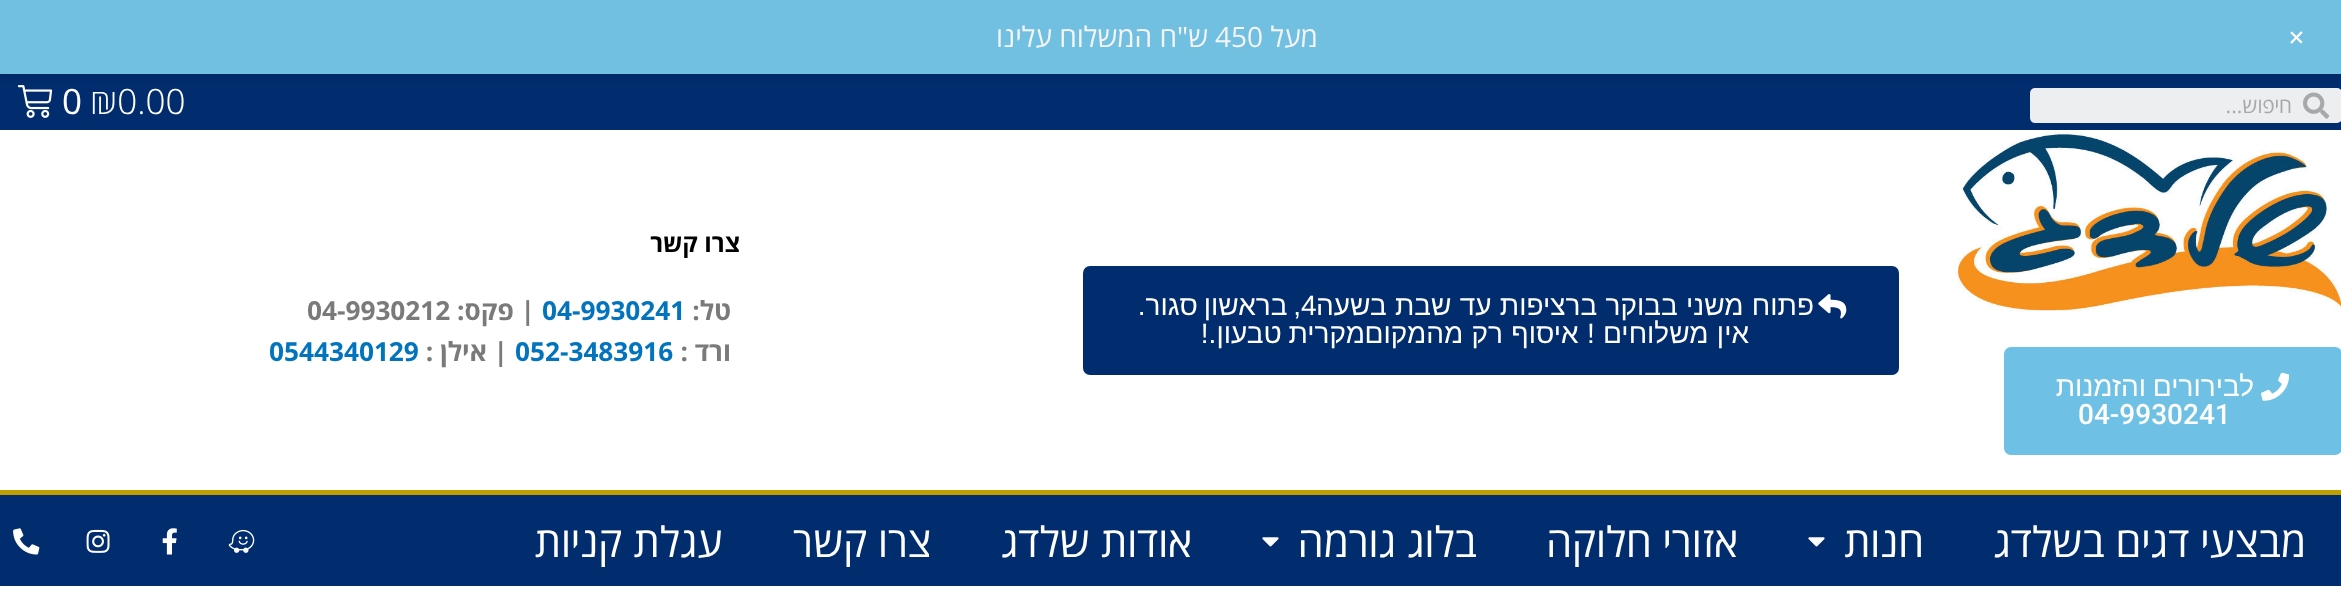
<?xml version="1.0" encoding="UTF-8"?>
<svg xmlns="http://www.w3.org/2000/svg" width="2341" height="592">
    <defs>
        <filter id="blur1" x="-50%" y="-200%" width="200%" height="500%"><feGaussianBlur stdDeviation="3.5"/></filter>
    </defs>
    <rect width="100%" height="100%" fill="#FFFFFF"/>
    <rect x="0" y="74" width="2341" height="56" fill="#012C6D"/>
    <rect x="2030" y="88" width="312" height="35" rx="5" fill="#ECEEEF"/>
    <image x="17" y="85" width="36" height="33" href="img_02.png"/>
    <rect x="0" y="5" width="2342" height="74" fill="#000000" fill-opacity="0.05" filter="url(#blur1)"/>
    <rect x="0" y="0" width="2341" height="74" fill="#71C0E1"/>
    <text x="2282" y="39" transform="rotate(45 2282 39)" font-family="Open Sans" font-size="32" fill="#FFFFFF">+</text>
    <text x="1318" y="47" font-family="Open Sans" font-size="28" direction="rtl" fill="#F4F4F4">מעל</text>
    <text x="1215" y="47" font-family="Open Sans" font-size="28" fill="#F4F4F4">450</text>
    <text x="1208" y="47" font-family="Open Sans" font-size="28" direction="rtl" fill="#F4F4F4">ש"ח המשלוח עלינו</text>
    <image x="2303" y="92" width="27" height="27" href="img_01.png"/>
    <text x="2292" y="113" font-family="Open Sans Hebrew" font-size="21" direction="rtl" fill="#A8A8A9">חיפוש...</text>
    <text x="90" y="114" font-family="Open Sans Hebrew" font-size="35" font-weight="300" fill="#FFFFFF">₪0.00</text>
    <text x="62" y="114" font-family="Open Sans Hebrew" font-size="35" fill="#FFFFFF">0</text>
    <rect x="1083" y="266" width="816" height="109" rx="7" fill="#012C6D"/>
    <image x="1818" y="294" width="29" height="25" href="img_03.png"/>
    <text x="1814" y="315" word-spacing="0.5" font-family="Liberation Sans" font-size="28" direction="rtl" fill="#FFFFFF">פתוח משני בבוקר ברציפות עד שבת בשעה</text>
    <text x="1301" y="315" word-spacing="-2" font-family="Liberation Sans" font-size="28" direction="rtl" fill="#FFFFFF">, בראשון סגור.</text>
    <text x="1301" y="315" font-family="Liberation Sans" font-size="28" fill="#FFFFFF">4</text>
    <text x="1749" y="343" word-spacing="0.5" font-family="Liberation Sans" font-size="28" direction="rtl" fill="#FFFFFF">אין משלוחים ! איסוף רק מהמקום</text>
    <text x="1365" y="343" word-spacing="-1" font-family="Liberation Sans" font-size="28" direction="rtl" fill="#FFFFFF">מקרית טבעון.!</text>
    <text x="740" y="252" font-family="Open Sans Hebrew" font-size="24.5" font-weight="700" direction="rtl" fill="#000000">צרו קשר</text>
    <text x="731" y="320" font-family="Open Sans Hebrew" font-size="26.25" font-weight="700" direction="rtl" fill="#7A7A7A">טל:</text>
    <text x="542" y="320" font-family="Open Sans Hebrew" font-size="26.25" font-weight="700" fill="#0274BE">04-9930241</text>
    <text x="535" y="320" font-family="Open Sans Hebrew" font-size="26.25" font-weight="700" direction="rtl" fill="#7A7A7A">| פקס:</text>
    <text x="307" y="320" font-family="Open Sans Hebrew" font-size="26.25" font-weight="700" fill="#7A7A7A">04-9930212</text>
    <text x="731" y="361" font-family="Open Sans Hebrew" font-size="26.25" font-weight="700" direction="rtl" fill="#7A7A7A">ורד :</text>
    <text x="515" y="361" font-family="Open Sans Hebrew" font-size="26.25" font-weight="700" fill="#0274BE">052-3483916</text>
    <text x="508" y="361" font-family="Open Sans Hebrew" font-size="26.25" font-weight="700" direction="rtl" fill="#7A7A7A">| אילן :</text>
    <text x="269" y="361" font-family="Open Sans Hebrew" font-size="26.25" font-weight="700" fill="#0274BE">0544340129</text>
    <image x="1958" y="131" width="383" height="181" href="img_04.png"/>
    <rect x="2004" y="347" width="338" height="108" rx="7" fill="#6EC1E4"/>
    <image x="2261" y="372" width="29" height="29" href="img_05.png"/>
    <text x="2254" y="396" word-spacing="-1" font-family="Liberation Sans" font-size="28" direction="rtl" fill="#FFFFFF">לבירורים והזמנות</text>
    <text x="2078" y="424" font-family="Roboto" font-size="28" font-weight="500" fill="#FFFFFF">04-9930241</text>
    <rect x="0" y="495" width="2341" height="91" fill="#012C6D"/>
    <rect x="0" y="490" width="2341" height="5" fill="#BF9F00"/>
    <text x="2306" y="557" font-family="Open Sans Hebrew" font-size="42" direction="rtl" fill="#FFFFFF">מבצעי דגים בשלדג</text>
    <text x="1924" y="557" font-family="Open Sans Hebrew" font-size="42" direction="rtl" fill="#FFFFFF">חנות</text>
    <image x="1808" y="537" width="17" height="10" href="img_06.png"/>
    <text x="1738" y="557" font-family="Open Sans Hebrew" font-size="42" direction="rtl" fill="#FFFFFF">אזורי חלוקה</text>
    <text x="1477" y="557" font-family="Open Sans Hebrew" font-size="42" direction="rtl" fill="#FFFFFF">בלוג גורמה</text>
    <image x="1262" y="537" width="17" height="10" href="img_06.png"/>
    <text x="1192" y="557" font-family="Open Sans Hebrew" font-size="42" direction="rtl" fill="#FFFFFF">אודות שלדג</text>
    <text x="931" y="557" font-family="Open Sans Hebrew" font-size="42" direction="rtl" fill="#FFFFFF">צרו קשר</text>
    <text x="723" y="557" font-family="Open Sans Hebrew" font-size="42" direction="rtl" fill="#FFFFFF">עגלת קניות</text>
    <image x="228" y="529" width="27" height="24" href="img_07.png"/>
    <image x="162" y="528" width="15" height="27" href="img_08.png"/>
    <image x="86" y="529" width="24" height="24" href="img_09.png"/>
    <image x="13" y="528" width="27" height="27" href="img_10.png"/>
</svg>
